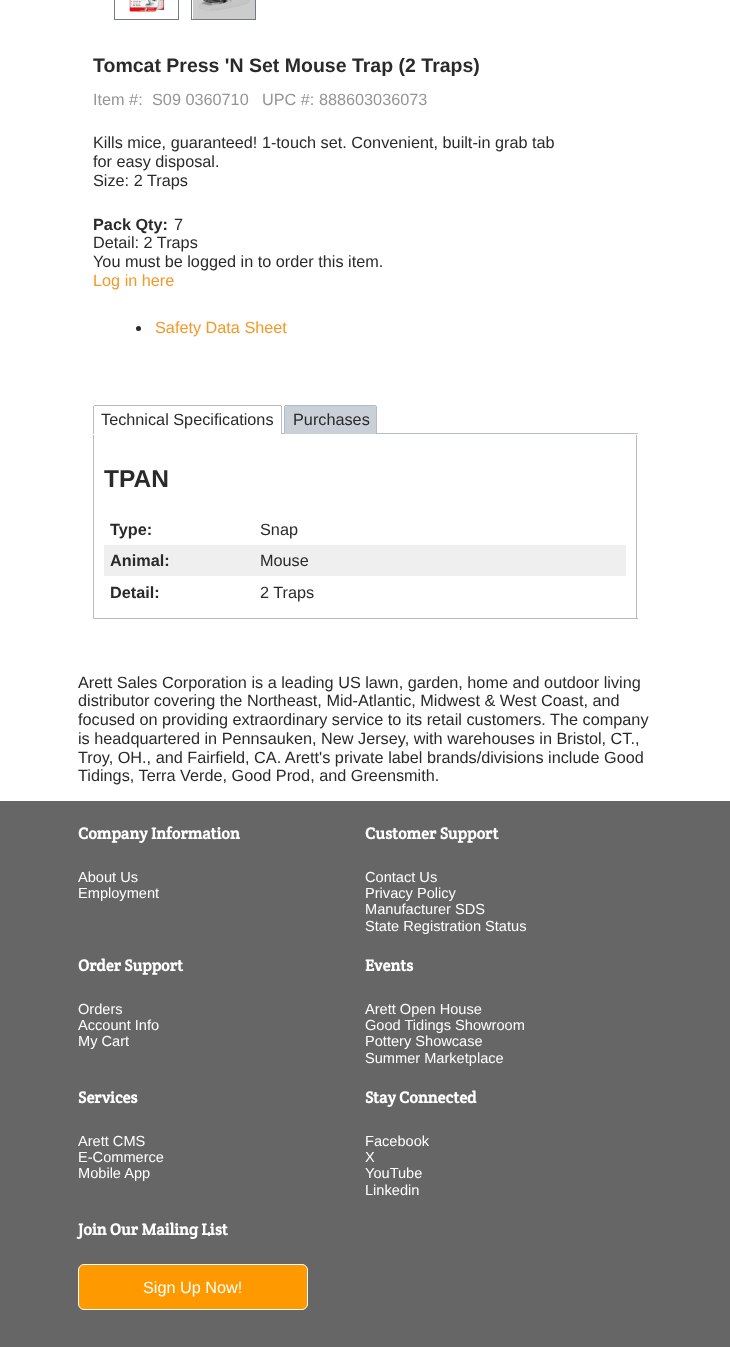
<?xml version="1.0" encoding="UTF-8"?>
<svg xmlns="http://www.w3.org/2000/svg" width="730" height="1347">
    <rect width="100%" height="100%" fill="#FFFFFF"/>
    <rect x="193" y="0" width="62" height="19" fill="#CCCCCC"/>
    <rect x="114.5" y="-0.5" width="64" height="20" fill="none" stroke="#737A81"/>
    <image x="129" y="0" width="36" height="12" href="img_01.png"/>
    <rect x="191.5" y="-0.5" width="64" height="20" fill="none" stroke="#737A81"/>
    <image x="199" y="0" width="51" height="11" href="img_02.png"/>
    <text x="93" y="72" font-family="Liberation Sans" font-size="19.5" font-weight="700" fill="#2A2A2A">Tomcat Press 'N Set Mouse Trap (2 Traps)</text>
    <text x="93" y="105" font-family="Liberation Sans" font-size="16.25" fill="#959595">Item #:</text>
    <text x="152" y="105" font-family="Liberation Sans" font-size="16.25" fill="#959595">S09 0360710</text>
    <text x="262" y="105" font-family="Liberation Sans" font-size="16.25" fill="#959595">UPC #: 888603036073</text>
    <text font-family="Liberation Sans" font-size="16.25" fill="#2A2A2A">
        <tspan x="93" y="148">Kills mice, guaranteed! 1-touch set. Convenient, built-in grab tab</tspan>
        <tspan x="93" y="167">for easy disposal.</tspan>
        <tspan x="93" y="186">Size: 2 Traps</tspan>
    </text>
    <text x="93" y="230" font-family="Liberation Sans" font-size="16.25" font-weight="700" fill="#2A2A2A">Pack Qty:</text>
    <text x="174" y="230" font-family="Liberation Sans" font-size="16.25" fill="#2A2A2A">7</text>
    <text font-family="Liberation Sans" font-size="16.25" fill="#2A2A2A">
        <tspan x="93" y="248">Detail: 2 Traps</tspan>
        <tspan x="93" y="267">You must be logged in to order this item.</tspan>
    </text>
    <text x="93" y="286" font-family="Liberation Sans" font-size="16.25" fill="#F59826">Log in here</text>
    <circle cx="138.5" cy="328.5" r="2.5" fill="#2A2A2A"/>
    <text x="155" y="333" font-family="Liberation Sans" font-size="16.25" fill="#F59826">Safety Data Sheet</text>
    <rect x="282" y="433" width="356" height="1" fill="#B5BCC7"/>
    <rect x="94" y="405" width="187" height="1" fill="#B5BCC7"/>
    <rect x="281" y="406" width="1" height="28" fill="#B5BCC7"/>
    <rect x="93" y="406" width="1" height="28" fill="#B5BCC7"/>
    <text x="101" y="425" font-family="Liberation Sans" font-size="16.25" fill="#2A2A2A">Technical Specifications</text>
    <path d="M 286 406 H 375 C 375.5 406 376 406.5 376 407 V 434 H 285 V 407 C 285 406.5 285.5 406 286 406 Z" fill="#C9D0D8"/>
    <rect x="285" y="405" width="91" height="1" fill="#B5BCC7"/>
    <rect x="376" y="406" width="1" height="28" fill="#B5BCC7"/>
    <rect x="284" y="406" width="1" height="28" fill="#B5BCC7"/>
    <text x="293" y="425" font-family="Liberation Sans" font-size="16.25" fill="#2A2A2A">Purchases</text>
    <rect x="636" y="435" width="1" height="184" fill="#B5BCC7"/>
    <rect x="93" y="618" width="545" height="1" fill="#B5BCC7"/>
    <rect x="93" y="435" width="1" height="184" fill="#B5BCC7"/>
    <text x="104" y="487" font-family="Liberation Sans" font-size="24.5" font-weight="700" fill="#2A2A2A">TPAN</text>
    <text x="110" y="535" font-family="Liberation Sans" font-size="16.25" font-weight="700" fill="#2A2A2A">Type:</text>
    <text x="260" y="535" font-family="Liberation Sans" font-size="16.25" fill="#2A2A2A">Snap</text>
    <rect x="104" y="545" width="522" height="31" fill="#EFEFEF"/>
    <text x="110" y="566" font-family="Liberation Sans" font-size="16.25" font-weight="700" fill="#2A2A2A">Animal:</text>
    <text x="260" y="566" font-family="Liberation Sans" font-size="16.25" fill="#2A2A2A">Mouse</text>
    <text x="110" y="598" font-family="Liberation Sans" font-size="16.25" font-weight="700" fill="#2A2A2A">Detail:</text>
    <text x="260" y="598" font-family="Liberation Sans" font-size="16.25" fill="#2A2A2A">2 Traps</text>
    <text font-family="Liberation Sans" font-size="16.25" fill="#2A2A2A">
        <tspan x="78" y="688">Arett Sales Corporation is a leading US lawn, garden, home and outdoor living</tspan>
        <tspan x="78" y="706">distributor covering the Northeast, Mid-Atlantic, Midwest &amp; West Coast, and</tspan>
        <tspan x="78" y="725">focused on providing extraordinary service to its retail customers. The company</tspan>
        <tspan x="78" y="744">is headquartered in Pennsauken, New Jersey, with warehouses in Bristol, CT.,</tspan>
        <tspan x="78" y="763">Troy, OH., and Fairfield, CA. Arett's private label brands/divisions include Good</tspan>
        <tspan x="78" y="781">Tidings, Terra Verde, Good Prod, and Greensmith.</tspan>
    </text>
    <rect x="0" y="801" width="730" height="546" fill="#666666"/>
    <text x="78" y="839" font-family="Crete Round" font-size="16.25" font-weight="700" fill="#FFFFFF">Company Information</text>
    <text font-family="Liberation Sans" font-size="14.6" fill="#FFFFFF">
        <tspan x="78" y="882">About Us</tspan>
        <tspan x="78" y="898">Employment</tspan>
    </text>
    <text x="365" y="839" font-family="Crete Round" font-size="16.25" font-weight="700" fill="#FFFFFF">Customer Support</text>
    <text font-family="Liberation Sans" font-size="14.6" fill="#FFFFFF">
        <tspan x="365" y="882">Contact Us</tspan>
        <tspan x="365" y="898">Privacy Policy</tspan>
        <tspan x="365" y="914">Manufacturer SDS</tspan>
        <tspan x="365" y="931">State Registration Status</tspan>
    </text>
    <text x="78" y="971" font-family="Crete Round" font-size="16.25" font-weight="700" fill="#FFFFFF">Order Support</text>
    <text font-family="Liberation Sans" font-size="14.6" fill="#FFFFFF">
        <tspan x="78" y="1014">Orders</tspan>
        <tspan x="78" y="1030">Account Info</tspan>
        <tspan x="78" y="1046">My Cart</tspan>
    </text>
    <text x="365" y="971" font-family="Crete Round" font-size="16.25" font-weight="700" fill="#FFFFFF">Events</text>
    <text font-family="Liberation Sans" font-size="14.6" fill="#FFFFFF">
        <tspan x="365" y="1014">Arett Open House</tspan>
        <tspan x="365" y="1030">Good Tidings Showroom</tspan>
        <tspan x="365" y="1046">Pottery Showcase</tspan>
        <tspan x="365" y="1063">Summer Marketplace</tspan>
    </text>
    <text x="78" y="1103" font-family="Crete Round" font-size="16.25" font-weight="700" fill="#FFFFFF">Services</text>
    <text font-family="Liberation Sans" font-size="14.6" fill="#FFFFFF">
        <tspan x="78" y="1146">Arett CMS</tspan>
        <tspan x="78" y="1162">E-Commerce</tspan>
        <tspan x="78" y="1178">Mobile App</tspan>
    </text>
    <text x="365" y="1103" font-family="Crete Round" font-size="16.25" font-weight="700" fill="#FFFFFF">Stay Connected</text>
    <text font-family="Liberation Sans" font-size="14.6" fill="#FFFFFF">
        <tspan x="365" y="1146">Facebook</tspan>
        <tspan x="365" y="1162">X</tspan>
        <tspan x="365" y="1178">YouTube</tspan>
        <tspan x="365" y="1195">Linkedin</tspan>
    </text>
    <text x="78" y="1235" font-family="Crete Round" font-size="16.25" font-weight="700" fill="#FFFFFF">Join Our Mailing List</text>
    <rect x="78.5" y="1264.5" width="229" height="45" rx="5.5" fill="#FF9900" stroke="#FFFFFF"/>
    <text x="143" y="1293" font-family="Liberation Sans" font-size="16.25" fill="#FFFFFF">Sign Up Now!</text>
</svg>
